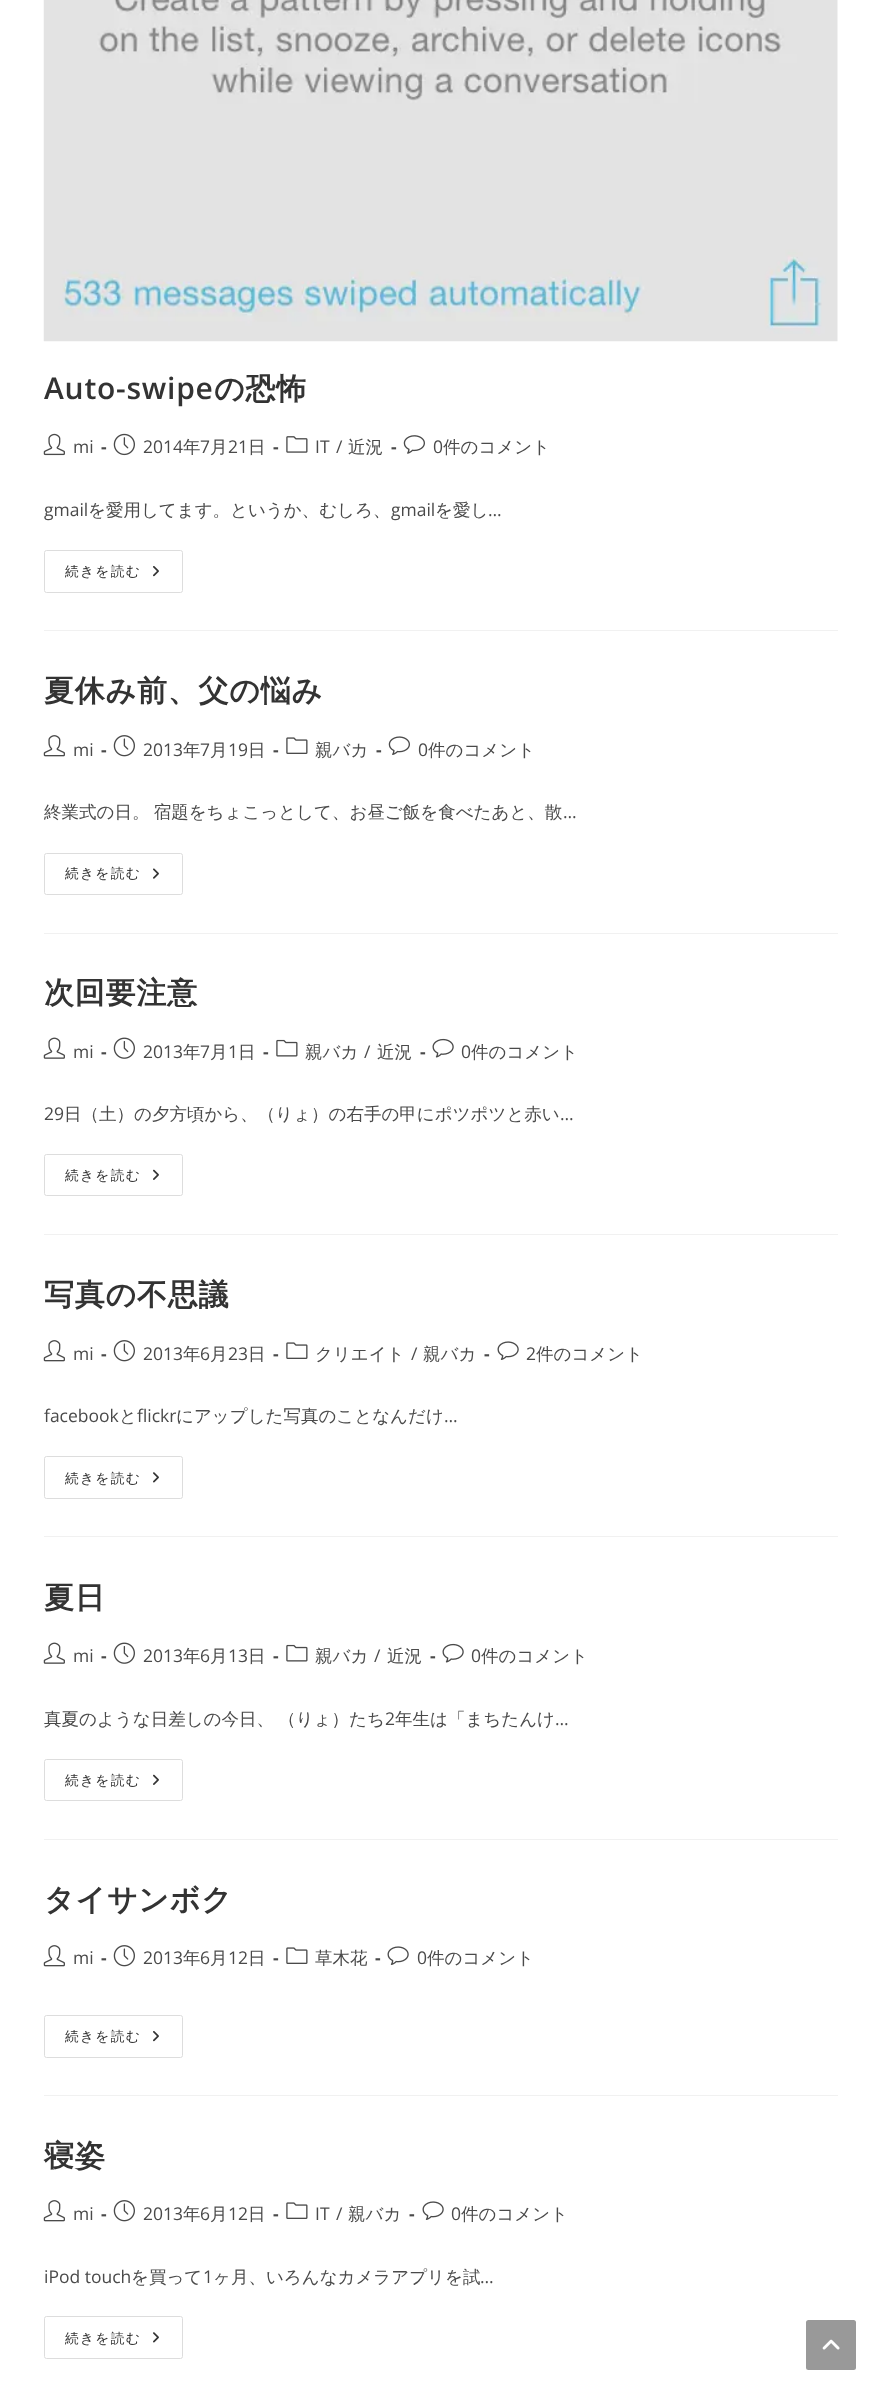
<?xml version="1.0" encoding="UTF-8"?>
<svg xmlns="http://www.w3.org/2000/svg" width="881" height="2395">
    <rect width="100%" height="100%" fill="#FFFFFF"/>
    <rect x="44" y="630" width="794" height="1" fill="#F1F1F1"/>
    <image x="43" y="0" width="795" height="342" href="img_01.png"/>
    <text x="44" y="399" font-family="Open Sans" font-size="30" font-weight="600" letter-spacing="0.75" fill="#333333">Auto-swipe</text>
    <text x="214" y="399" font-family="WenQuanYi Zen Hei" font-size="30" font-weight="700" letter-spacing="0.75" fill="#333333">の恐怖</text>
    <image x="43" y="433" width="22" height="23" href="img_02.png"/>
    <text x="73" y="453" font-family="Open Sans" font-size="17.5" fill="#4A4A4A">mi</text>
    <text x="101" y="453" font-family="Open Sans" font-size="17.5" font-weight="700" fill="#4A4A4A">-</text>
    <image x="113" y="433" width="22" height="23" href="img_03.png"/>
    <text x="143" y="453" font-family="Open Sans" font-size="17.5" fill="#4A4A4A">2014</text>
    <text x="183" y="453" font-family="WenQuanYi Zen Hei" font-size="17.5" font-weight="500" fill="#4A4A4A">年</text>
    <text x="200" y="453" font-family="Open Sans" font-size="17.5" fill="#4A4A4A">7</text>
    <text x="210" y="453" font-family="WenQuanYi Zen Hei" font-size="17.5" font-weight="500" fill="#4A4A4A">月</text>
    <text x="228" y="453" font-family="Open Sans" font-size="17.5" fill="#4A4A4A">21</text>
    <text x="248" y="453" font-family="WenQuanYi Zen Hei" font-size="17.5" font-weight="500" fill="#4A4A4A">日</text>
    <text x="273" y="453" font-family="Open Sans" font-size="17.5" font-weight="700" fill="#4A4A4A">-</text>
    <image x="286" y="436" width="22" height="17" href="img_04.png"/>
    <text x="315" y="453" font-family="Open Sans" font-size="17.5" fill="#4A4A4A">IT</text>
    <text x="336" y="453" font-family="Open Sans" font-size="17.5" fill="#4A4A4A">/</text>
    <text x="348" y="453" font-family="WenQuanYi Zen Hei" font-size="17.5" font-weight="500" fill="#4A4A4A">近況</text>
    <text x="391" y="453" font-family="Open Sans" font-size="17.5" font-weight="700" fill="#4A4A4A">-</text>
    <image x="403" y="435" width="22" height="19" href="img_05.png"/>
    <text x="433" y="453" font-family="Open Sans" font-size="17.5" fill="#4A4A4A">0</text>
    <text x="443" y="453" font-family="WenQuanYi Zen Hei" font-size="17.5" font-weight="500" fill="#4A4A4A">件のコメント</text>
    <text x="44" y="516" font-family="Open Sans" font-size="17.5" fill="#4A4A4A">gmail</text>
    <text x="88" y="516" font-family="WenQuanYi Zen Hei" font-size="17.5" font-weight="500" fill="#4A4A4A">を愛用してます。というか、むしろ、</text>
    <text x="391" y="516" font-family="Open Sans" font-size="17.5" fill="#4A4A4A">gmail</text>
    <text x="435" y="516" font-family="WenQuanYi Zen Hei" font-size="17.5" font-weight="500" fill="#4A4A4A">を愛し</text>
    <text x="488" y="516" font-family="Open Sans" font-size="17.5" fill="#4A4A4A">…</text>
    <rect x="44.5" y="550.5" width="138" height="42" rx="2" fill="none" stroke="#DDDDDD"/>
    <text x="65" y="576" font-family="WenQuanYi Zen Hei" font-size="13.75" font-weight="500" letter-spacing="1.25" fill="#333333">続きを読む</text>
    <image x="153" y="566" width="6" height="11" href="img_06.png"/>
    <rect x="44" y="933" width="794" height="1" fill="#F1F1F1"/>
    <text x="44" y="701" font-family="WenQuanYi Zen Hei" font-size="30" font-weight="700" letter-spacing="0.75" fill="#333333">夏休み前、父の悩み</text>
    <image x="43" y="735" width="22" height="22" href="img_07.png"/>
    <text x="73" y="756" font-family="Open Sans" font-size="17.5" fill="#4A4A4A">mi</text>
    <text x="101" y="756" font-family="Open Sans" font-size="17.5" font-weight="700" fill="#4A4A4A">-</text>
    <image x="113" y="735" width="22" height="22" href="img_08.png"/>
    <text x="143" y="756" font-family="Open Sans" font-size="17.5" fill="#4A4A4A">2013</text>
    <text x="183" y="756" font-family="WenQuanYi Zen Hei" font-size="17.5" font-weight="500" fill="#4A4A4A">年</text>
    <text x="200" y="756" font-family="Open Sans" font-size="17.5" fill="#4A4A4A">7</text>
    <text x="210" y="756" font-family="WenQuanYi Zen Hei" font-size="17.5" font-weight="500" fill="#4A4A4A">月</text>
    <text x="228" y="756" font-family="Open Sans" font-size="17.5" fill="#4A4A4A">19</text>
    <text x="248" y="756" font-family="WenQuanYi Zen Hei" font-size="17.5" font-weight="500" fill="#4A4A4A">日</text>
    <text x="273" y="756" font-family="Open Sans" font-size="17.5" font-weight="700" fill="#4A4A4A">-</text>
    <image x="286" y="737" width="22" height="17" href="img_09.png"/>
    <text x="315" y="756" font-family="WenQuanYi Zen Hei" font-size="17.5" font-weight="500" fill="#4A4A4A">親バカ</text>
    <text x="376" y="756" font-family="Open Sans" font-size="17.5" font-weight="700" fill="#4A4A4A">-</text>
    <image x="388" y="736" width="22" height="19" href="img_10.png"/>
    <text x="418" y="756" font-family="Open Sans" font-size="17.5" fill="#4A4A4A">0</text>
    <text x="428" y="756" font-family="WenQuanYi Zen Hei" font-size="17.5" font-weight="500" fill="#4A4A4A">件のコメント</text>
    <text x="44" y="818" word-spacing="-1" font-family="WenQuanYi Zen Hei" font-size="17.5" font-weight="500" fill="#4A4A4A">終業式の日。 宿題をちょこっとして、お昼ご飯を食べたあと、散</text>
    <text x="563" y="818" font-family="Open Sans" font-size="17.5" fill="#4A4A4A">…</text>
    <rect x="44.5" y="853.5" width="138" height="41" rx="2" fill="none" stroke="#DDDDDD"/>
    <text x="65" y="878" font-family="WenQuanYi Zen Hei" font-size="13.75" font-weight="500" letter-spacing="1.25" fill="#333333">続きを読む</text>
    <image x="153" y="868" width="6" height="11" href="img_11.png"/>
    <rect x="44" y="1234" width="794" height="1" fill="#F1F1F1"/>
    <text x="44" y="1003" font-family="WenQuanYi Zen Hei" font-size="30" font-weight="700" letter-spacing="0.75" fill="#333333">次回要注意</text>
    <image x="43" y="1037" width="22" height="22" href="img_12.png"/>
    <text x="73" y="1058" font-family="Open Sans" font-size="17.5" fill="#4A4A4A">mi</text>
    <text x="101" y="1058" font-family="Open Sans" font-size="17.5" font-weight="700" fill="#4A4A4A">-</text>
    <image x="113" y="1037" width="22" height="22" href="img_13.png"/>
    <text x="143" y="1058" font-family="Open Sans" font-size="17.5" fill="#4A4A4A">2013</text>
    <text x="183" y="1058" font-family="WenQuanYi Zen Hei" font-size="17.5" font-weight="500" fill="#4A4A4A">年</text>
    <text x="200" y="1058" font-family="Open Sans" font-size="17.5" fill="#4A4A4A">7</text>
    <text x="210" y="1058" font-family="WenQuanYi Zen Hei" font-size="17.5" font-weight="500" fill="#4A4A4A">月</text>
    <text x="228" y="1058" font-family="Open Sans" font-size="17.5" fill="#4A4A4A">1</text>
    <text x="238" y="1058" font-family="WenQuanYi Zen Hei" font-size="17.5" font-weight="500" fill="#4A4A4A">日</text>
    <text x="263" y="1058" font-family="Open Sans" font-size="17.5" font-weight="700" fill="#4A4A4A">-</text>
    <image x="276" y="1039" width="22" height="18" href="img_14.png"/>
    <text x="305" y="1058" font-family="WenQuanYi Zen Hei" font-size="17.5" font-weight="500" fill="#4A4A4A">親バカ</text>
    <text x="364" y="1058" font-family="Open Sans" font-size="17.5" fill="#4A4A4A">/</text>
    <text x="377" y="1058" font-family="WenQuanYi Zen Hei" font-size="17.5" font-weight="500" fill="#4A4A4A">近況</text>
    <text x="420" y="1058" font-family="Open Sans" font-size="17.5" font-weight="700" fill="#4A4A4A">-</text>
    <image x="432" y="1038" width="22" height="20" href="img_15.png"/>
    <text x="461" y="1058" font-family="Open Sans" font-size="17.5" fill="#4A4A4A">0</text>
    <text x="471" y="1058" font-family="WenQuanYi Zen Hei" font-size="17.5" font-weight="500" fill="#4A4A4A">件のコメント</text>
    <text x="44" y="1120" font-family="Open Sans" font-size="17.5" fill="#4A4A4A">29</text>
    <text x="64" y="1120" font-family="WenQuanYi Zen Hei" font-size="17.5" font-weight="500" fill="#4A4A4A">日（土）の夕方頃から、（りょ）の右手の甲にポツポツと赤い</text>
    <text x="560" y="1120" font-family="Open Sans" font-size="17.5" fill="#4A4A4A">…</text>
    <rect x="44.5" y="1154.5" width="138" height="41" rx="2" fill="none" stroke="#DDDDDD"/>
    <text x="65" y="1180" font-family="WenQuanYi Zen Hei" font-size="13.75" font-weight="500" letter-spacing="1.25" fill="#333333">続きを読む</text>
    <image x="153" y="1169" width="6" height="11" href="img_16.png"/>
    <rect x="44" y="1536" width="794" height="1" fill="#F1F1F1"/>
    <text x="44" y="1305" font-family="WenQuanYi Zen Hei" font-size="30" font-weight="700" letter-spacing="0.75" fill="#333333">写真の不思議</text>
    <image x="43" y="1340" width="22" height="22" href="img_07.png"/>
    <text x="73" y="1360" font-family="Open Sans" font-size="17.5" fill="#4A4A4A">mi</text>
    <text x="101" y="1360" font-family="Open Sans" font-size="17.5" font-weight="700" fill="#4A4A4A">-</text>
    <image x="113" y="1340" width="22" height="22" href="img_08.png"/>
    <text x="143" y="1360" font-family="Open Sans" font-size="17.5" fill="#4A4A4A">2013</text>
    <text x="183" y="1360" font-family="WenQuanYi Zen Hei" font-size="17.5" font-weight="500" fill="#4A4A4A">年</text>
    <text x="200" y="1360" font-family="Open Sans" font-size="17.5" fill="#4A4A4A">6</text>
    <text x="210" y="1360" font-family="WenQuanYi Zen Hei" font-size="17.5" font-weight="500" fill="#4A4A4A">月</text>
    <text x="228" y="1360" font-family="Open Sans" font-size="17.5" fill="#4A4A4A">23</text>
    <text x="248" y="1360" font-family="WenQuanYi Zen Hei" font-size="17.5" font-weight="500" fill="#4A4A4A">日</text>
    <text x="273" y="1360" font-family="Open Sans" font-size="17.5" font-weight="700" fill="#4A4A4A">-</text>
    <image x="286" y="1342" width="22" height="17" href="img_09.png"/>
    <text x="315" y="1360" font-family="WenQuanYi Zen Hei" font-size="17.5" font-weight="500" fill="#4A4A4A">クリエイト</text>
    <text x="411" y="1360" font-family="Open Sans" font-size="17.5" fill="#4A4A4A">/</text>
    <text x="423" y="1360" font-family="WenQuanYi Zen Hei" font-size="17.5" font-weight="500" fill="#4A4A4A">親バカ</text>
    <text x="484" y="1360" font-family="Open Sans" font-size="17.5" font-weight="700" fill="#4A4A4A">-</text>
    <image x="497" y="1341" width="22" height="19" href="img_17.png"/>
    <text x="526" y="1360" font-family="Open Sans" font-size="17.5" fill="#4A4A4A">2</text>
    <text x="536" y="1360" font-family="WenQuanYi Zen Hei" font-size="17.5" font-weight="500" fill="#4A4A4A">件のコメント</text>
    <text x="44" y="1422" font-family="Open Sans" font-size="17.5" fill="#4A4A4A">facebook</text>
    <text x="119" y="1422" font-family="WenQuanYi Zen Hei" font-size="17.5" font-weight="500" fill="#4A4A4A">と</text>
    <text x="137" y="1422" font-family="Open Sans" font-size="17.5" fill="#4A4A4A">flickr</text>
    <text x="176" y="1422" font-family="WenQuanYi Zen Hei" font-size="17.5" font-weight="500" fill="#4A4A4A">にアップした写真のことなんだけ</text>
    <text x="444" y="1422" font-family="Open Sans" font-size="17.5" fill="#4A4A4A">…</text>
    <rect x="44.5" y="1456.5" width="138" height="42" rx="2" fill="none" stroke="#DDDDDD"/>
    <text x="65" y="1483" font-family="WenQuanYi Zen Hei" font-size="13.75" font-weight="500" letter-spacing="1.25" fill="#333333">続きを読む</text>
    <image x="153" y="1472" width="6" height="11" href="img_18.png"/>
    <rect x="44" y="1839" width="794" height="1" fill="#F1F1F1"/>
    <text x="44" y="1608" font-family="WenQuanYi Zen Hei" font-size="30" font-weight="700" letter-spacing="0.75" fill="#333333">夏日</text>
    <image x="43" y="1642" width="22" height="22" href="img_12.png"/>
    <text x="73" y="1662" font-family="Open Sans" font-size="17.5" fill="#4A4A4A">mi</text>
    <text x="101" y="1662" font-family="Open Sans" font-size="17.5" font-weight="700" fill="#4A4A4A">-</text>
    <image x="113" y="1642" width="22" height="22" href="img_13.png"/>
    <text x="143" y="1662" font-family="Open Sans" font-size="17.5" fill="#4A4A4A">2013</text>
    <text x="183" y="1662" font-family="WenQuanYi Zen Hei" font-size="17.5" font-weight="500" fill="#4A4A4A">年</text>
    <text x="200" y="1662" font-family="Open Sans" font-size="17.5" fill="#4A4A4A">6</text>
    <text x="210" y="1662" font-family="WenQuanYi Zen Hei" font-size="17.5" font-weight="500" fill="#4A4A4A">月</text>
    <text x="228" y="1662" font-family="Open Sans" font-size="17.5" fill="#4A4A4A">13</text>
    <text x="248" y="1662" font-family="WenQuanYi Zen Hei" font-size="17.5" font-weight="500" fill="#4A4A4A">日</text>
    <text x="273" y="1662" font-family="Open Sans" font-size="17.5" font-weight="700" fill="#4A4A4A">-</text>
    <image x="286" y="1644" width="22" height="18" href="img_14.png"/>
    <text x="315" y="1662" font-family="WenQuanYi Zen Hei" font-size="17.5" font-weight="500" fill="#4A4A4A">親バカ</text>
    <text x="374" y="1662" font-family="Open Sans" font-size="17.5" fill="#4A4A4A">/</text>
    <text x="387" y="1662" font-family="WenQuanYi Zen Hei" font-size="17.5" font-weight="500" fill="#4A4A4A">近況</text>
    <text x="430" y="1662" font-family="Open Sans" font-size="17.5" font-weight="700" fill="#4A4A4A">-</text>
    <image x="442" y="1643" width="22" height="20" href="img_15.png"/>
    <text x="471" y="1662" font-family="Open Sans" font-size="17.5" fill="#4A4A4A">0</text>
    <text x="481" y="1662" font-family="WenQuanYi Zen Hei" font-size="17.5" font-weight="500" fill="#4A4A4A">件のコメント</text>
    <text x="44" y="1725" word-spacing="-1" font-family="WenQuanYi Zen Hei" font-size="17.5" font-weight="500" fill="#4A4A4A">真夏のような日差しの今日、 （りょ）たち</text>
    <text x="385" y="1725" font-family="Open Sans" font-size="17.5" fill="#4A4A4A">2</text>
    <text x="395" y="1725" font-family="WenQuanYi Zen Hei" font-size="17.5" font-weight="500" fill="#4A4A4A">年生は「まちたんけ</text>
    <text x="555" y="1725" font-family="Open Sans" font-size="17.5" fill="#4A4A4A">…</text>
    <rect x="44.5" y="1759.5" width="138" height="41" rx="2" fill="none" stroke="#DDDDDD"/>
    <text x="65" y="1785" font-family="WenQuanYi Zen Hei" font-size="13.75" font-weight="500" letter-spacing="1.25" fill="#333333">続きを読む</text>
    <image x="153" y="1774" width="6" height="11" href="img_16.png"/>
    <rect x="44" y="2095" width="794" height="1" fill="#F1F1F1"/>
    <text x="44" y="1910" font-family="WenQuanYi Zen Hei" font-size="30" font-weight="700" letter-spacing="0.75" fill="#333333">タイサンボク</text>
    <image x="43" y="1945" width="22" height="22" href="img_07.png"/>
    <text x="73" y="1964" font-family="Open Sans" font-size="17.5" fill="#4A4A4A">mi</text>
    <text x="101" y="1964" font-family="Open Sans" font-size="17.5" font-weight="700" fill="#4A4A4A">-</text>
    <image x="113" y="1945" width="22" height="22" href="img_08.png"/>
    <text x="143" y="1964" font-family="Open Sans" font-size="17.5" fill="#4A4A4A">2013</text>
    <text x="183" y="1964" font-family="WenQuanYi Zen Hei" font-size="17.5" font-weight="500" fill="#4A4A4A">年</text>
    <text x="200" y="1964" font-family="Open Sans" font-size="17.5" fill="#4A4A4A">6</text>
    <text x="210" y="1964" font-family="WenQuanYi Zen Hei" font-size="17.5" font-weight="500" fill="#4A4A4A">月</text>
    <text x="228" y="1964" font-family="Open Sans" font-size="17.5" fill="#4A4A4A">12</text>
    <text x="248" y="1964" font-family="WenQuanYi Zen Hei" font-size="17.5" font-weight="500" fill="#4A4A4A">日</text>
    <text x="273" y="1964" font-family="Open Sans" font-size="17.5" font-weight="700" fill="#4A4A4A">-</text>
    <image x="286" y="1947" width="22" height="17" href="img_09.png"/>
    <text x="315" y="1964" font-family="WenQuanYi Zen Hei" font-size="17.5" font-weight="500" fill="#4A4A4A">草木花</text>
    <text x="375" y="1964" font-family="Open Sans" font-size="17.5" font-weight="700" fill="#4A4A4A">-</text>
    <image x="387" y="1946" width="22" height="19" href="img_17.png"/>
    <text x="417" y="1964" font-family="Open Sans" font-size="17.5" fill="#4A4A4A">0</text>
    <text x="427" y="1964" font-family="WenQuanYi Zen Hei" font-size="17.5" font-weight="500" fill="#4A4A4A">件のコメント</text>
    <rect x="44.5" y="2015.5" width="138" height="42" rx="2" fill="none" stroke="#DDDDDD"/>
    <text x="65" y="2041" font-family="WenQuanYi Zen Hei" font-size="13.75" font-weight="500" letter-spacing="1.25" fill="#333333">続きを読む</text>
    <image x="153" y="2031" width="6" height="11" href="img_06.png"/>
    <text x="44" y="2166" font-family="WenQuanYi Zen Hei" font-size="30" font-weight="700" letter-spacing="0.75" fill="#333333">寝姿</text>
    <image x="43" y="2200" width="22" height="22" href="img_07.png"/>
    <text x="73" y="2220" font-family="Open Sans" font-size="17.5" fill="#4A4A4A">mi</text>
    <text x="101" y="2220" font-family="Open Sans" font-size="17.5" font-weight="700" fill="#4A4A4A">-</text>
    <image x="113" y="2200" width="22" height="22" href="img_08.png"/>
    <text x="143" y="2220" font-family="Open Sans" font-size="17.5" fill="#4A4A4A">2013</text>
    <text x="183" y="2220" font-family="WenQuanYi Zen Hei" font-size="17.5" font-weight="500" fill="#4A4A4A">年</text>
    <text x="200" y="2220" font-family="Open Sans" font-size="17.5" fill="#4A4A4A">6</text>
    <text x="210" y="2220" font-family="WenQuanYi Zen Hei" font-size="17.5" font-weight="500" fill="#4A4A4A">月</text>
    <text x="228" y="2220" font-family="Open Sans" font-size="17.5" fill="#4A4A4A">12</text>
    <text x="248" y="2220" font-family="WenQuanYi Zen Hei" font-size="17.5" font-weight="500" fill="#4A4A4A">日</text>
    <text x="273" y="2220" font-family="Open Sans" font-size="17.5" font-weight="700" fill="#4A4A4A">-</text>
    <image x="286" y="2202" width="22" height="17" href="img_09.png"/>
    <text x="315" y="2220" font-family="Open Sans" font-size="17.5" fill="#4A4A4A">IT</text>
    <text x="336" y="2220" font-family="Open Sans" font-size="17.5" fill="#4A4A4A">/</text>
    <text x="348" y="2220" font-family="WenQuanYi Zen Hei" font-size="17.5" font-weight="500" fill="#4A4A4A">親バカ</text>
    <text x="409" y="2220" font-family="Open Sans" font-size="17.5" font-weight="700" fill="#4A4A4A">-</text>
    <image x="422" y="2201" width="22" height="19" href="img_17.png"/>
    <text x="451" y="2220" font-family="Open Sans" font-size="17.5" fill="#4A4A4A">0</text>
    <text x="461" y="2220" font-family="WenQuanYi Zen Hei" font-size="17.5" font-weight="500" fill="#4A4A4A">件のコメント</text>
    <text x="44" y="2283" font-family="Open Sans" font-size="17.5" fill="#4A4A4A">iPod touch</text>
    <text x="131" y="2283" font-family="WenQuanYi Zen Hei" font-size="17.5" font-weight="500" fill="#4A4A4A">を買って</text>
    <text x="203" y="2283" font-family="Open Sans" font-size="17.5" fill="#4A4A4A">1</text>
    <text x="213" y="2283" font-family="WenQuanYi Zen Hei" font-size="17.5" font-weight="500" fill="#4A4A4A">ヶ月、いろんなカメラアプリを試</text>
    <text x="480" y="2283" font-family="Open Sans" font-size="17.5" fill="#4A4A4A">…</text>
    <rect x="44.5" y="2316.5" width="138" height="42" rx="2" fill="none" stroke="#DDDDDD"/>
    <text x="65" y="2343" font-family="WenQuanYi Zen Hei" font-size="13.75" font-weight="500" letter-spacing="1.25" fill="#333333">続きを読む</text>
    <image x="153" y="2332" width="6" height="11" href="img_18.png"/>
    <rect x="806" y="2320" width="50" height="50" rx="2.5" fill="#999999"/>
    <image x="822" y="2339" width="18" height="11" href="img_19.png"/>
</svg>
